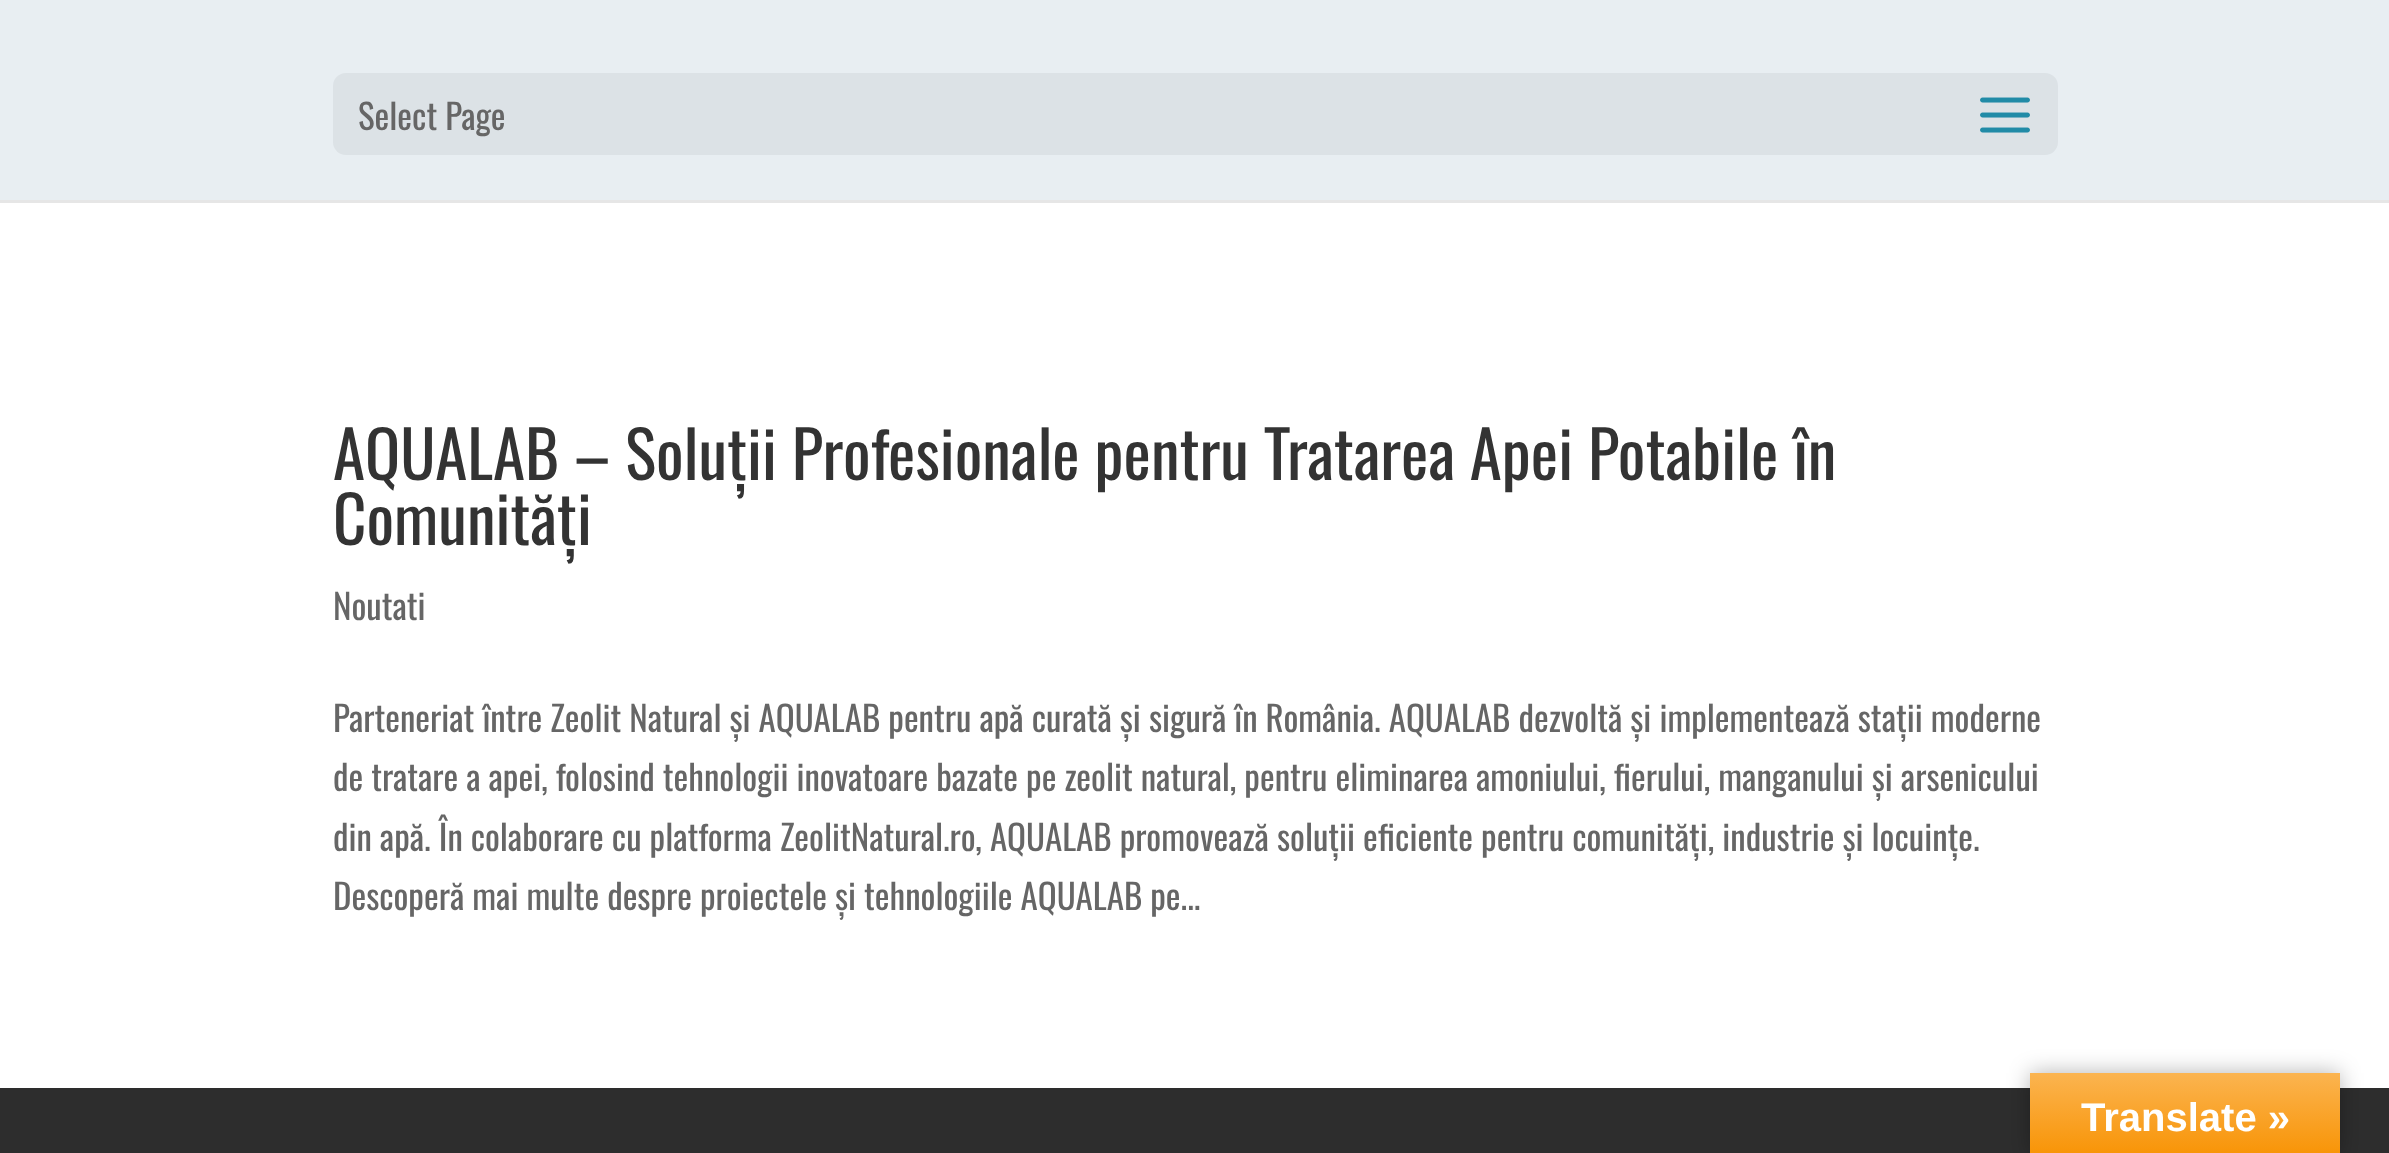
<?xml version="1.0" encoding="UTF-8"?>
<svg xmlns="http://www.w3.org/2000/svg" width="2389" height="1153">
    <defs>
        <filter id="blur1" x="-50%" y="-200%" width="200%" height="500%"><feGaussianBlur stdDeviation="11"/></filter>
        <linearGradient id="g1" gradientUnits="userSpaceOnUse" x1="2185" y1="1073" x2="2185" y2="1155"><stop offset="0" stop-color="#FBB450"/><stop offset="1" stop-color="#F89406"/></linearGradient>
    </defs>
    <rect width="100%" height="100%" fill="#FFFFFF"/>
    <rect x="0" y="200" width="2389" height="3" fill="#E6E6E6"/>
    <rect x="0" y="0" width="2389" height="200" fill="#E8EEF2"/>
    <rect x="333" y="73" width="1725" height="82" rx="13" fill="#DCE2E6"/>
    <text x="358" y="130" font-family="Oswald" font-size="35" fill="#666666">Select Page</text>
    <image x="1980" y="97" width="50" height="36" href="img_01.png"/>
    <text font-family="Oswald" font-size="65" fill="#333333">
        <tspan x="333" y="480">AQUALAB – Soluții Profesionale pentru Tratarea Apei Potabile în</tspan>
        <tspan x="333" y="545">Comunități</tspan>
    </text>
    <text x="333" y="620" font-family="Oswald" font-size="35" fill="#666666">Noutati</text>
    <text font-family="Oswald" font-size="35" fill="#666666">
        <tspan x="333" y="732">Parteneriat între Zeolit Natural și AQUALAB pentru apă curată și sigură în România. AQUALAB dezvoltă și implementează stații moderne</tspan>
        <tspan x="333" y="791">de tratare a apei, folosind tehnologii inovatoare bazate pe zeolit natural, pentru eliminarea amoniului, fierului, manganului și arsenicului</tspan>
        <tspan x="333" y="851">din apă. În colaborare cu platforma ZeolitNatural.ro, AQUALAB promovează soluții eficiente pentru comunități, industrie și locuințe.</tspan>
        <tspan x="333" y="910">Descoperă mai multe despre proiectele și tehnologiile AQUALAB pe...</tspan>
    </text>
    <rect x="0" y="1088" width="2389" height="65" fill="#2D2D2D"/>
    <rect x="2030" y="1073" width="310" height="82" fill="#000000" fill-opacity="0.3" filter="url(#blur1)"/>
    <rect x="2030" y="1073" width="310" height="80" fill="url(#g1)"/>
    <text x="2081" y="1131" font-family="Liberation Sans" font-size="40" font-weight="700" fill="#FFFFFF">Translate »</text>
</svg>
